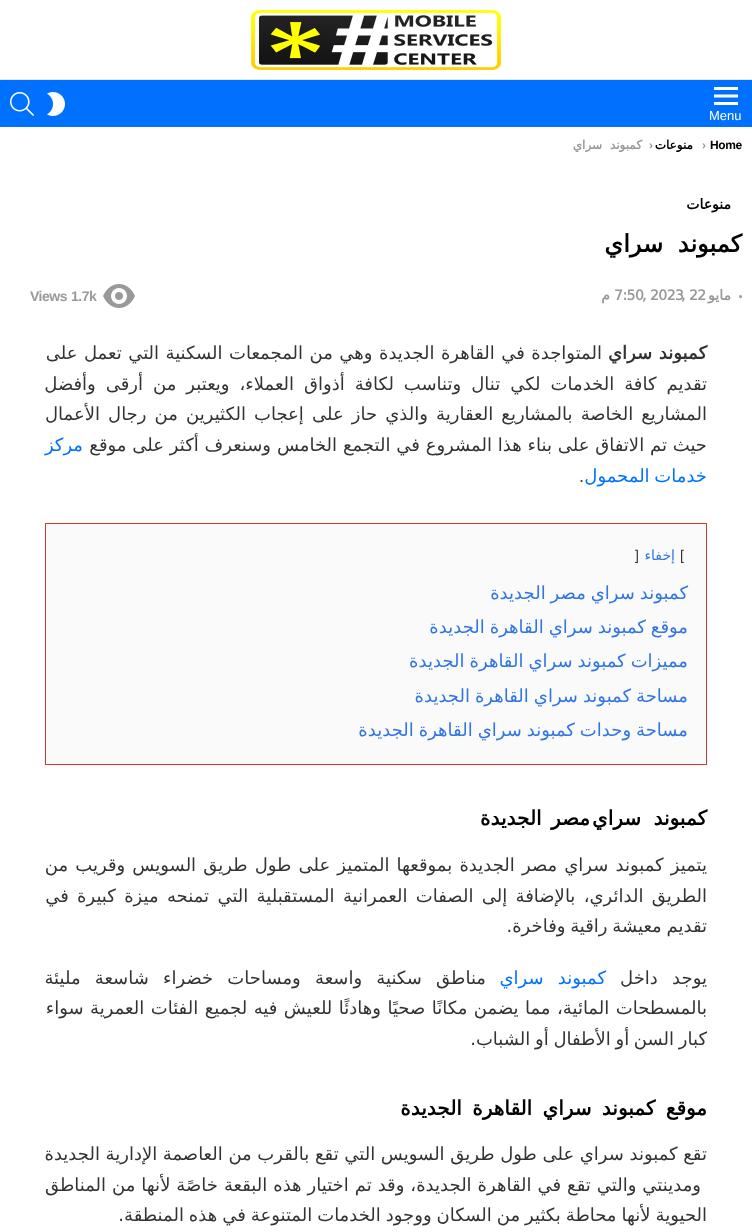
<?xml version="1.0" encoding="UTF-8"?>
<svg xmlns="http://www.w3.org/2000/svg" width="752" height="1232">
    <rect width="100%" height="100%" fill="#FFFFFF"/>
    <image x="251" y="10" width="250" height="60" href="img_01.png"/>
    <rect x="0" y="79" width="752" height="1" fill="#E6E6E6"/>
    <rect x="0" y="80" width="752" height="47" fill="#0071FF"/>
    <image x="714" y="87" width="24" height="18" href="img_02.png"/>
    <text x="709" y="120" font-family="Liberation Sans" font-size="13" fill="#FFFFFF">Menu</text>
    <image x="47" y="92" width="18" height="24" href="img_03.png"/>
    <image x="10" y="92" width="24" height="24" href="img_04.png"/>
    <text x="710" y="149" font-family="Liberation Sans" font-size="12" font-weight="700" letter-spacing="-0.4" fill="#000000">Home</text>
    <text x="702" y="149" font-family="Liberation Sans" font-size="12" font-weight="700" letter-spacing="-0.4" fill="#999999">›</text>
    <text x="693" y="149" font-family="DejaVu Sans" font-size="12" font-weight="700" letter-spacing="-0.4" direction="rtl" fill="#000000">منوعات</text>
    <text x="649" y="149" font-family="Liberation Sans" font-size="12" font-weight="700" letter-spacing="-0.4" fill="#999999">›</text>
    <text x="642" y="149" word-spacing="4" font-family="DejaVu Sans" font-size="12" font-weight="700" letter-spacing="-0.4" direction="rtl" fill="#999999">كمبوند سراي</text>
    <text x="731" y="209" font-family="DejaVu Sans" font-size="14" font-weight="700" letter-spacing="-0.5" direction="rtl" fill="#000000">منوعات</text>
    <text x="742" y="252" word-spacing="7" font-family="DejaVu Sans" font-size="24" font-weight="700" letter-spacing="-0.75" direction="rtl" fill="#000000">كمبوند سراي</text>
    <circle cx="740.5" cy="296.5" r="1.5" fill="#999999"/>
    <text x="731" y="300" font-family="DejaVu Sans" font-size="14" font-weight="700" letter-spacing="-0.5" direction="rtl" fill="#999999">مايو</text>
    <text x="614" y="300" font-family="DejaVu Sans" font-size="14" font-weight="700" letter-spacing="-0.5" fill="#999999">7:50</text>
    <text x="642" y="300" font-family="DejaVu Sans" font-size="14" font-weight="700" letter-spacing="-0.5" fill="#999999">, 2023</text>
    <text x="681" y="300" font-family="DejaVu Sans" font-size="14" font-weight="700" letter-spacing="-0.5" fill="#999999">, 22</text>
    <text x="610" y="300" font-family="DejaVu Sans" font-size="14" font-weight="700" letter-spacing="-0.5" direction="rtl" fill="#999999">م</text>
    <image x="103" y="284" width="32" height="24" href="img_05.png"/>
    <text x="71" y="301" font-family="Liberation Sans" font-size="14" font-weight="700" letter-spacing="-0.5" fill="#999999">1.7k</text>
    <text x="30" y="301" font-family="Liberation Sans" font-size="14" font-weight="700" letter-spacing="-0.5" fill="#999999">Views</text>
    <text x="707" y="359" word-spacing="1" font-family="DejaVu Sans" font-size="18" font-weight="700" direction="rtl" fill="#333333">كمبوند سراي</text>
    <text x="602" y="359" word-spacing="0.75" font-family="DejaVu Sans" font-size="18" direction="rtl" fill="#333333">المتواجدة في القاهرة الجديدة وهي من المجمعات السكنية التي تعمل على</text>
    <text font-family="DejaVu Sans" font-size="18" direction="rtl" fill="#333333">
        <tspan x="707" y="390" word-spacing="4.25">تقديم كافة الخدمات لكي تنال وتناسب لكافة أذواق العملاء، ويعتبر من أرقى وأفضل</tspan>
        <tspan x="707" y="420" word-spacing="2.4">المشاريع الخاصة بالمشاريع العقارية والذي حاز على إعجاب الكثيرين من رجال الأعمال</tspan>
        <tspan x="707" y="451" word-spacing="0.1">حيث تم الاتفاق على بناء هذا المشروع في التجمع الخامس وسنعرف أكثر على موقع</tspan>
    </text>
    <text x="83" y="451" font-family="DejaVu Sans" font-size="18" direction="rtl" fill="#0071FF">مركز</text>
    <text x="707" y="482" word-spacing="-1" font-family="DejaVu Sans" font-size="18" direction="rtl" fill="#0071FF">خدمات المحمول</text>
    <text x="579" y="482" font-family="Liberation Sans" font-size="18" fill="#333333">.</text>
    <rect x="45.5" y="523.5" width="661" height="241" fill="#FAFAFA" stroke="#DD3333"/>
    <text x="680" y="560" font-family="Liberation Sans" font-size="14" fill="#333333">[</text>
    <text x="675" y="560" font-family="DejaVu Sans" font-size="14" direction="rtl" fill="#3175E4">إخفاء</text>
    <text x="635" y="560" font-family="Liberation Sans" font-size="14" fill="#333333">]</text>
    <text font-family="DejaVu Sans" font-size="18" direction="rtl" fill="#3175E4">
        <tspan x="688" y="599" word-spacing="-0.75">كمبوند سراي مصر الجديدة</tspan>
        <tspan x="688" y="633" word-spacing="-0.75">موقع كمبوند سراي القاهرة الجديدة</tspan>
        <tspan x="688" y="667" word-spacing="-0.75">مميزات كمبوند سراي القاهرة الجديدة</tspan>
        <tspan x="688" y="702" word-spacing="-0.75">مساحة كمبوند سراي القاهرة الجديدة</tspan>
        <tspan x="688" y="736" word-spacing="-0.75">مساحة وحدات كمبوند سراي القاهرة الجديدة</tspan>
    </text>
    <text x="707" y="825" word-spacing="6" font-family="DejaVu Sans" font-size="20" font-weight="700" letter-spacing="-0.6" direction="rtl" fill="#000000">كمبوند سراي</text>
    <text x="590" y="825" word-spacing="3" font-family="DejaVu Sans" font-size="20" font-weight="700" letter-spacing="-0.6" direction="rtl" fill="#000000">مصر الجديدة</text>
    <text font-family="DejaVu Sans" font-size="18" direction="rtl" fill="#333333">
        <tspan x="707" y="871" word-spacing="1.4">يتميز كمبوند سراي مصر الجديدة بموقعها المتميز على طول طريق السويس وقريب من</tspan>
        <tspan x="707" y="902" word-spacing="2.6">الطريق الدائري، بالإضافة إلى الصفات العمرانية المستقبلية التي تمنحه ميزة كبيرة في</tspan>
        <tspan x="707" y="932" word-spacing="-1">تقديم معيشة راقية وفاخرة.</tspan>
    </text>
    <text x="707" y="984" word-spacing="8.5" font-family="DejaVu Sans" font-size="18" direction="rtl" fill="#333333">يوجد داخل</text>
    <text x="606" y="984" word-spacing="8.5" font-family="DejaVu Sans" font-size="18" direction="rtl" fill="#0071FF">كمبوند سراي</text>
    <text x="486" y="984" word-spacing="8.5" font-family="DejaVu Sans" font-size="18" direction="rtl" fill="#333333">مناطق سكنية واسعة ومساحات خضراء شاسعة مليئة</text>
    <text font-family="DejaVu Sans" font-size="18" direction="rtl" fill="#333333">
        <tspan x="707" y="1014" word-spacing="0.75">بالمسطحات المائية، مما يضمن مكانًا صحيًا وهادئًا للعيش فيه لجميع الفئات العمرية سواء</tspan>
        <tspan x="707" y="1045" word-spacing="-1">كبار السن أو الأطفال أو الشباب.</tspan>
    </text>
    <text x="707" y="1115" word-spacing="4" font-family="DejaVu Sans" font-size="20" font-weight="700" letter-spacing="-0.6" direction="rtl" fill="#000000">موقع كمبوند سراي القاهرة الجديدة</text>
    <text x="707" y="1160" word-spacing="-0.1" font-family="DejaVu Sans" font-size="18" direction="rtl" fill="#333333">تقع كمبوند سراي على طول طريق السويس التي تقع بالقرب من العاصمة الإدارية الجديدة</text>
    <text x="701" y="1191" word-spacing="0.25" font-family="DejaVu Sans" font-size="18" direction="rtl" fill="#333333">ومدينتي والتي تقع في القاهرة الجديدة، وقد تم اختيار هذه البقعة خاصًة لأنها من المناطق</text>
    <text x="707" y="1221" word-spacing="-0.75" font-family="DejaVu Sans" font-size="18" direction="rtl" fill="#333333">الحيوية لأنها محاطة بكثير من السكان ووجود الخدمات المتنوعة في هذه المنطقة.</text>
</svg>
